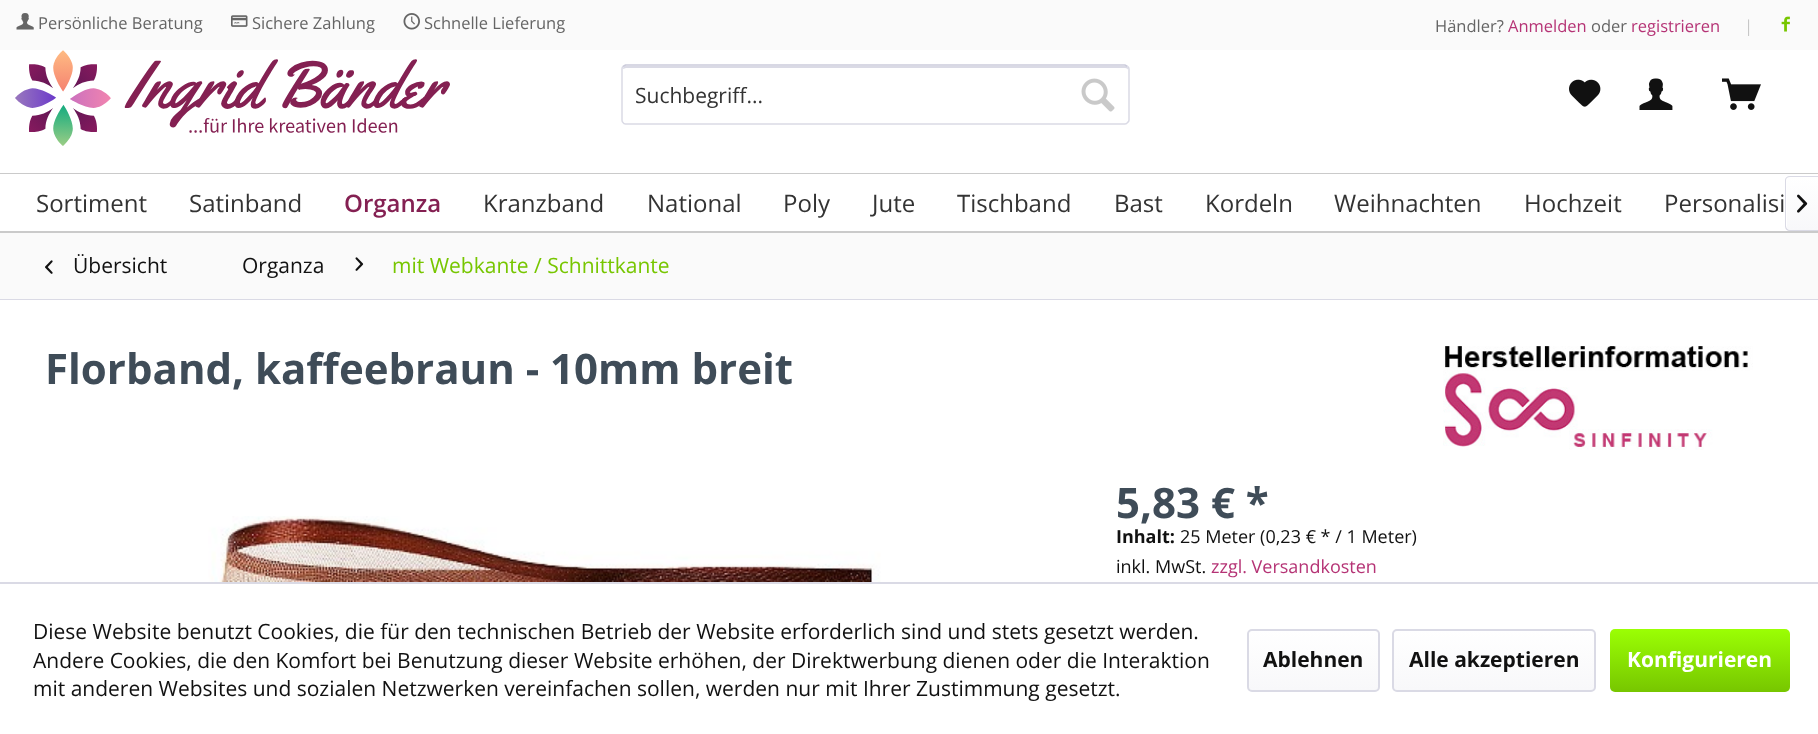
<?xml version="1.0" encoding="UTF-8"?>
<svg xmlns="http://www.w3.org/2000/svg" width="1818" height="734">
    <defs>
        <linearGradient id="g1" gradientUnits="userSpaceOnUse" x1="1802" y1="177" x2="1802" y2="230"><stop offset="0" stop-color="#FFFFFF"/><stop offset="1" stop-color="#F8F8FA"/></linearGradient>
        <linearGradient id="g2" gradientUnits="userSpaceOnUse" x1="1313" y1="630" x2="1313" y2="690"><stop offset="0" stop-color="#FFFFFF"/><stop offset="1" stop-color="#F8F8FA"/></linearGradient>
        <linearGradient id="g3" gradientUnits="userSpaceOnUse" x1="1494" y1="630" x2="1494" y2="690"><stop offset="0" stop-color="#FFFFFF"/><stop offset="1" stop-color="#F8F8FA"/></linearGradient>
        <linearGradient id="g4" gradientUnits="userSpaceOnUse" x1="1700" y1="629" x2="1700" y2="692"><stop offset="0" stop-color="#9BFF04"/><stop offset="1" stop-color="#77C600"/></linearGradient>
    </defs>
    <rect width="100%" height="100%" fill="#FAFAFA"/>
    <rect x="0" y="50" width="1818" height="123" fill="#FFFFFF"/>
    <image x="16" y="13" width="18" height="17" href="img_01.png"/>
    <text x="38" y="29" font-family="Open Sans" font-size="16.5" fill="#656565">Persönliche Beratung</text>
    <image x="231" y="15" width="17" height="12" href="img_02.png"/>
    <text x="252" y="29" font-family="Open Sans" font-size="16.5" fill="#656565">Sichere Zahlung</text>
    <image x="403" y="13" width="17" height="17" href="img_03.png"/>
    <text x="424" y="29" font-family="Open Sans" font-size="16.5" fill="#656565">Schnelle Lieferung</text>
    <text x="1435" y="32" font-family="Open Sans" font-size="16.5" fill="#656565">Händler?</text>
    <text x="1508" y="32" font-family="Open Sans" font-size="16.5" fill="#B53375">Anmelden</text>
    <text x="1591" y="32" font-family="Open Sans" font-size="16.5" fill="#656565">oder</text>
    <text x="1631" y="32" font-family="Open Sans" font-size="16.5" fill="#B53375">registrieren</text>
    <text x="1744" y="32" font-family="Open Sans" font-size="16.5" fill="#C7C7C7">|</text>
    <image x="1781" y="16" width="9" height="16" href="img_04.png"/>
    <image x="15" y="50" width="435" height="96" href="img_05.png"/>
    <path d="M 626 68 H 1125 C 1127 68 1128 69 1128 70 V 69 C 1128 67 1127 66 1125 66 H 626 C 624 66 623 67 623 69 Z" fill="#DADAE5"/>
    <path d="M 623 66.5 L 625.5 65 H 1125 L 1127.5 66.5" fill="none" stroke="#CBCBDB" stroke-width="1.5"/>
    <path d="M 1127.5 66.5 C 1128.5 67 1129 68 1129 69 V 120 C 1129 121 1128.5 122 1127.5 122.5 C 1127 123.5 1126 124 1125 124 H 625.5 C 624.5 124 623.5 123.5 623 122.5 C 622 122 622 121 622 120 V 69 C 622 68 622 67 623 66.5" fill="none" stroke="#DADAE5" stroke-width="1.5"/>
    <text x="635" y="103" font-family="Open Sans" font-size="21" fill="#333333">Suchbegriff...</text>
    <image x="1081" y="78" width="34" height="34" href="img_06.png"/>
    <image x="1569" y="79" width="32" height="28" href="img_07.png"/>
    <image x="1639" y="78" width="34" height="32" href="img_08.png"/>
    <image x="1722" y="78" width="39" height="32" href="img_09.png"/>
    <rect x="0" y="173" width="1818" height="1" fill="#CACACA"/>
    <rect x="0" y="231" width="1818" height="2" fill="#CACACA"/>
    <rect x="0" y="174" width="1818" height="57" fill="#FFFFFF"/>
    <text x="36" y="212" font-family="Open Sans" font-size="24" fill="#333333">Sortiment</text>
    <text x="189" y="212" font-family="Open Sans" font-size="24" fill="#333333">Satinband</text>
    <text x="344" y="212" font-family="Open Sans" font-size="24" font-weight="600" fill="#842052">Organza</text>
    <text x="483" y="212" font-family="Open Sans" font-size="24" fill="#333333">Kranzband</text>
    <text x="647" y="212" font-family="Open Sans" font-size="24" fill="#333333">National</text>
    <text x="783" y="212" font-family="Open Sans" font-size="24" fill="#333333">Poly</text>
    <text x="872" y="212" font-family="Open Sans" font-size="24" fill="#333333">Jute</text>
    <text x="957" y="212" font-family="Open Sans" font-size="24" fill="#333333">Tischband</text>
    <text x="1114" y="212" font-family="Open Sans" font-size="24" fill="#333333">Bast</text>
    <text x="1205" y="212" font-family="Open Sans" font-size="24" fill="#333333">Kordeln</text>
    <text x="1334" y="212" font-family="Open Sans" font-size="24" fill="#333333">Weihnachten</text>
    <text x="1524" y="212" font-family="Open Sans" font-size="24" fill="#333333">Hochzeit</text>
    <text x="1664" y="212" font-family="Open Sans" font-size="24" fill="#333333">Personalisi</text>
    <path d="M 1790 177 H 1818 V 230 H 1790 C 1788.5 230 1787 228.5 1787 227 V 180 C 1787 178.5 1788.5 177 1790 177 Z" fill="url(#g1)"/>
    <path d="M 1790 176 H 1818 V 231 H 1790 C 1787 231 1785 229 1785 226 V 180 C 1785 178 1787 176 1790 176 Z M 1790 177 H 1818 V 230 H 1790 C 1788 230 1786 228 1786 226 V 180 C 1786 178 1788 177 1790 177 Z" fill="#DADAE5" fill-rule="evenodd"/>
    <image x="1797" y="194" width="11" height="19" href="img_10.png"/>
    <rect x="0" y="299" width="1818" height="1" fill="#DADAE5"/>
    <image x="45" y="260" width="8" height="14" href="img_11.png"/>
    <text x="73" y="273" font-family="Open Sans" font-size="21" fill="#111111">Übersicht</text>
    <text x="242" y="273" font-family="Open Sans" font-size="21" fill="#111111">Organza</text>
    <image x="355" y="257" width="9" height="14" href="img_12.png"/>
    <text x="392" y="273" font-family="Open Sans" font-size="21" fill="#77C600">mit Webkante / Schnittkante</text>
    <rect x="0" y="300" width="1818" height="282" fill="#FFFFFF"/>
    <text x="45" y="384" font-family="Open Sans" font-size="42" font-weight="700" fill="#3F4C58">Florband, kaffeebraun - 10mm breit</text>
    <image x="1443" y="346" width="310" height="104" href="img_13.png"/>
    <image x="208" y="516" width="673" height="66" href="img_14.png"/>
    <text x="1116" y="518" font-family="Open Sans" font-size="42" font-weight="700" fill="#3F4C58">5,83 € *</text>
    <text x="1116" y="543" font-family="Open Sans" font-size="18" font-weight="700" fill="#111111">Inhalt:</text>
    <text x="1180" y="543" font-family="Open Sans" font-size="18" fill="#111111">25 Meter (0,23 € * / 1 Meter)</text>
    <text x="1116" y="573" font-family="Open Sans" font-size="18" fill="#111111">inkl. MwSt.</text>
    <text x="1211" y="573" font-family="Open Sans" font-size="18" fill="#B53375">zzgl. Versandkosten</text>
    <rect x="0" y="584" width="1818" height="150" fill="#FFFFFF"/>
    <rect x="0" y="582" width="1818" height="2" fill="#DADAE5"/>
    <text font-family="Open Sans" font-size="21" fill="#111111">
        <tspan x="33" y="639">Diese Website benutzt Cookies, die für den technischen Betrieb der Website erforderlich sind und stets gesetzt werden.</tspan>
        <tspan x="33" y="668">Andere Cookies, die den Komfort bei Benutzung dieser Website erhöhen, der Direktwerbung dienen oder die Interaktion</tspan>
        <tspan x="33" y="696">mit anderen Websites und sozialen Netzwerken vereinfachen sollen, werden nur mit Ihrer Zustimmung gesetzt.</tspan>
    </text>
    <rect x="1248" y="630" width="131" height="60" rx="3" fill="url(#g2)"/>
    <rect x="1248" y="630" width="131" height="61" rx="4" fill="none" stroke="#DADAE5" stroke-width="2"/>
    <text x="1263" y="667" font-family="Open Sans" font-size="21" font-weight="700" fill="#111111">Ablehnen</text>
    <rect x="1394" y="630" width="201" height="60" rx="3" fill="url(#g3)"/>
    <rect x="1393" y="630" width="202" height="61" rx="4" fill="none" stroke="#DADAE5" stroke-width="2"/>
    <text x="1409" y="667" font-family="Open Sans" font-size="21" font-weight="700" fill="#111111">Alle akzeptieren</text>
    <rect x="1610" y="629" width="180" height="63" rx="5" fill="url(#g4)"/>
    <text x="1627" y="667" font-family="Open Sans" font-size="21" font-weight="700" fill="#FFFFFF">Konfigurieren</text>
</svg>
